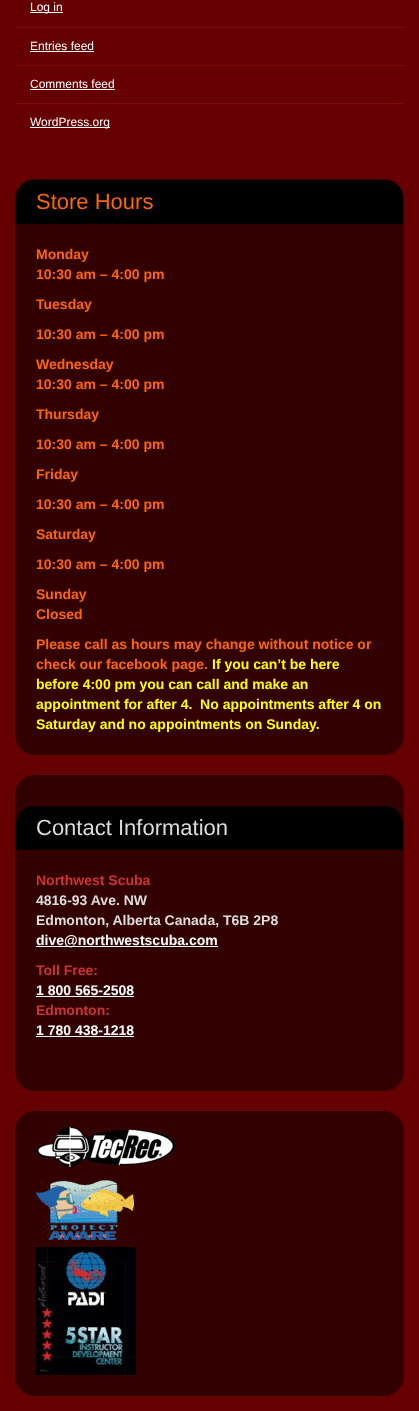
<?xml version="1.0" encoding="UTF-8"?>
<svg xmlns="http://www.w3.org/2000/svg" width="419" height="1411">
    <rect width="100%" height="100%" fill="#660000"/>
    <rect x="15" y="27" width="389" height="1" fill="#800B0B"/>
    <rect x="30" y="12" width="33" height="1" fill="#FFFFFF"/>
    <text x="30" y="11" font-family="Liberation Sans" font-size="12" fill="#FFFFFF">Log in</text>
    <rect x="15" y="65" width="389" height="1" fill="#800B0B"/>
    <text x="30" y="50" font-family="Liberation Sans" font-size="12" fill="#FFFFFF">Entries feed</text>
    <rect x="30" y="51" width="64" height="1" fill="#FFFFFF"/>
    <rect x="15" y="103" width="389" height="1" fill="#800B0B"/>
    <text x="30" y="88" font-family="Liberation Sans" font-size="12" fill="#FFFFFF">Comments feed</text>
    <rect x="30" y="89" width="85" height="1" fill="#FFFFFF"/>
    <rect x="30" y="127" width="80" height="1" fill="#FFFFFF"/>
    <text x="30" y="126" font-family="Liberation Sans" font-size="12" fill="#FFFFFF">WordPress.org</text>
    <rect x="15.5" y="179.5" width="388" height="575" rx="19.5" fill="#330000" stroke="#300404"/>
    <path d="M 34 180 H 385 C 395 180 403 188 403 198 V 224 H 16 V 198 C 16 188 24 180 34 180 Z" fill="#000000"/>
    <text x="36" y="209" font-family="Liberation Sans" font-size="22" fill="#FF6600">Store Hours</text>
    <text font-family="Liberation Sans" font-size="14" font-weight="700" fill="#FF6600">
        <tspan x="36" y="259">Monday</tspan>
        <tspan x="36" y="279">10:30 am – 4:00 pm</tspan>
    </text>
    <text x="36" y="309" font-family="Liberation Sans" font-size="14" font-weight="700" fill="#FF6600">Tuesday</text>
    <text x="36" y="339" font-family="Liberation Sans" font-size="14" font-weight="700" fill="#FF6600">10:30 am – 4:00 pm</text>
    <text font-family="Liberation Sans" font-size="14" font-weight="700" fill="#FF6600">
        <tspan x="36" y="369">Wednesday</tspan>
        <tspan x="36" y="389">10:30 am – 4:00 pm</tspan>
    </text>
    <text x="36" y="419" font-family="Liberation Sans" font-size="14" font-weight="700" fill="#FF6600">Thursday</text>
    <text x="36" y="449" font-family="Liberation Sans" font-size="14" font-weight="700" fill="#FF6600">10:30 am – 4:00 pm</text>
    <text x="36" y="479" font-family="Liberation Sans" font-size="14" font-weight="700" fill="#FF6600">Friday</text>
    <text x="36" y="509" font-family="Liberation Sans" font-size="14" font-weight="700" fill="#FF6600">10:30 am – 4:00 pm</text>
    <text x="36" y="539" font-family="Liberation Sans" font-size="14" font-weight="700" fill="#FF6600">Saturday</text>
    <text x="36" y="569" font-family="Liberation Sans" font-size="14" font-weight="700" fill="#FF6600">10:30 am – 4:00 pm</text>
    <text font-family="Liberation Sans" font-size="14" font-weight="700" fill="#FF6600">
        <tspan x="36" y="599">Sunday</tspan>
        <tspan x="36" y="619">Closed</tspan>
    </text>
    <text font-family="Liberation Sans" font-size="14" font-weight="700" fill="#FF6600">
        <tspan x="36" y="649">Please call as hours may change without notice or</tspan>
        <tspan x="36" y="669">check our facebook page.</tspan>
    </text>
    <text x="212" y="669" font-family="Liberation Sans" font-size="14" font-weight="700" fill="#FFFF00">If you can’t be here</text>
    <text font-family="Liberation Sans" font-size="14" font-weight="700" fill="#FFFF00" xml:space="preserve"><tspan x="36" y="689">before 4:00 pm you can call and make an</tspan><tspan x="36" y="709">appointment for after 4.  No appointments after 4 on</tspan><tspan x="36" y="729">Saturday and no appointments on Sunday.</tspan></text>
    <rect x="15.5" y="775.5" width="388" height="315" rx="19.5" fill="#330000" stroke="#300404"/>
    <path d="M 34 806 H 385 C 395 806 403 814 403 824 V 850 H 16 V 824 C 16 814 24 806 34 806 Z" fill="#000000"/>
    <text x="36" y="835" font-family="Liberation Sans" font-size="22" fill="#DDDDDD">Contact Information</text>
    <text x="36" y="885" font-family="Liberation Sans" font-size="14" font-weight="700" fill="#CC3333">Northwest Scuba</text>
    <text font-family="Liberation Sans" font-size="14" font-weight="700" fill="#DDDDDD">
        <tspan x="36" y="905">4816-93 Ave. NW</tspan>
        <tspan x="36" y="925">Edmonton, Alberta Canada, T6B 2P8</tspan>
    </text>
    <rect x="36" y="946" width="182" height="1" fill="#FFFFFF"/>
    <text x="36" y="945" font-family="Liberation Sans" font-size="14" font-weight="700" fill="#FFFFFF">dive@northwestscuba.com</text>
    <text x="36" y="975" font-family="Liberation Sans" font-size="14" font-weight="700" fill="#CC3333">Toll Free:</text>
    <text x="36" y="995" font-family="Liberation Sans" font-size="14" font-weight="700" fill="#FFFFFF">1 800 565-2508</text>
    <rect x="36" y="996" width="98" height="1" fill="#FFFFFF"/>
    <text x="36" y="1015" font-family="Liberation Sans" font-size="14" font-weight="700" fill="#CC3333">Edmonton:</text>
    <text x="36" y="1035" font-family="Liberation Sans" font-size="14" font-weight="700" fill="#FFFFFF">1 780 438-1218</text>
    <rect x="36" y="1036" width="98" height="1" fill="#FFFFFF"/>
    <rect x="15.5" y="1111.5" width="388" height="284" rx="19.5" fill="#330000" stroke="#300404"/>
    <image x="36" y="1127" width="140" height="40" href="img_01.png"/>
    <image x="36" y="1180" width="99" height="62" href="img_02.png"/>
    <image x="36" y="1247" width="100" height="128" href="img_03.png"/>
</svg>
